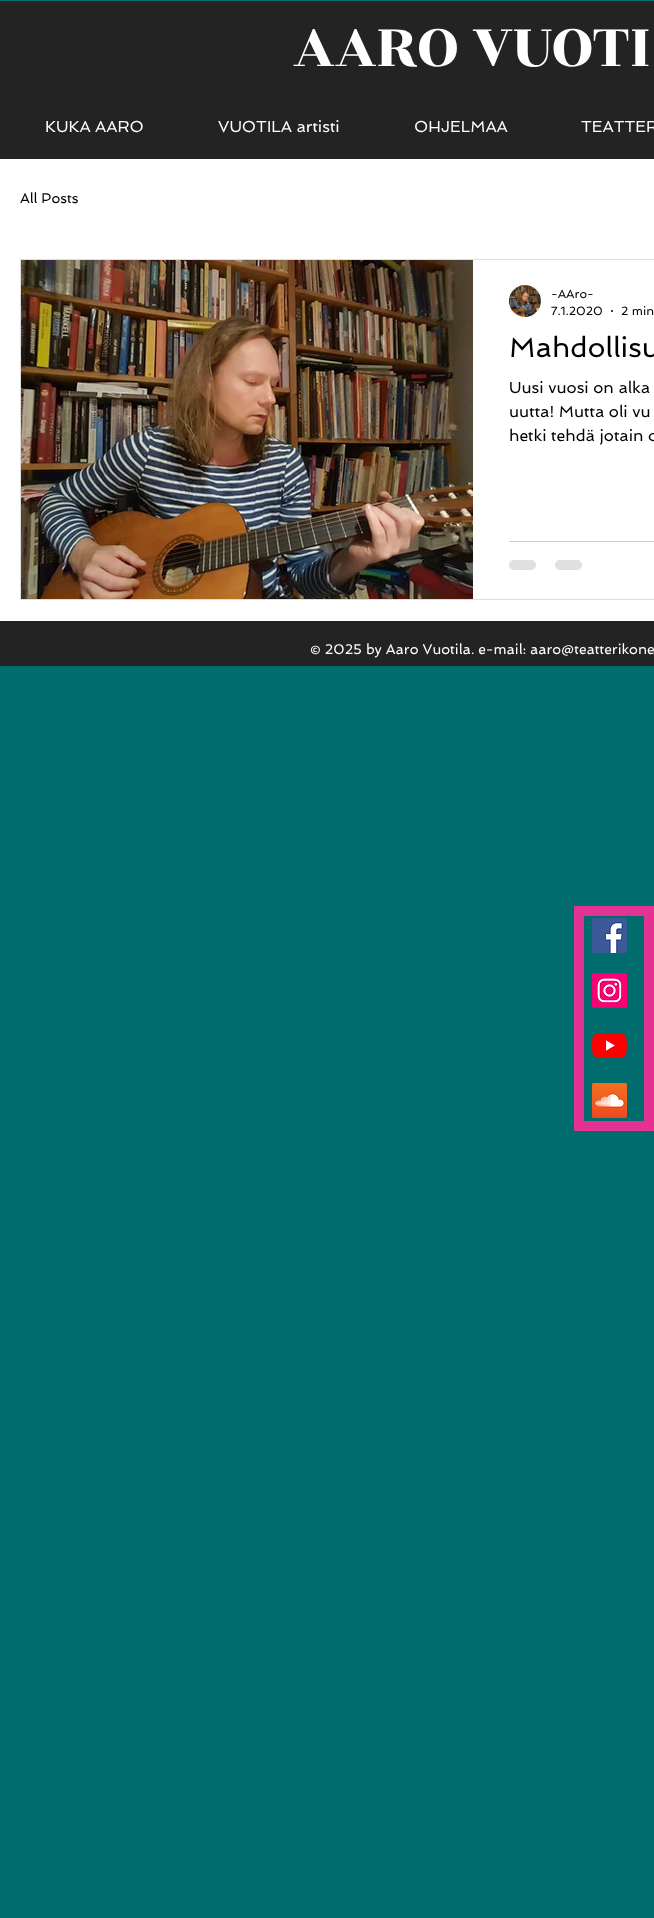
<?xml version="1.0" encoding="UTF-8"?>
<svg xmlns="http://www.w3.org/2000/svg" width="654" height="1918">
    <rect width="100%" height="100%" fill="#006C6D"/>
    <rect x="0" y="1" width="654" height="158" fill="#242323"/>
    <text x="293" y="66" font-family="Rozha One" font-size="65" fill="#FFFFFF">AARO VUOTI</text>
    <text x="45" y="132" font-family="Spinnaker" font-size="16" fill="#FFFFFF">KUKA AARO</text>
    <text x="218" y="132" font-family="Spinnaker" font-size="16" fill="#FFFFFF">VUOTILA artisti</text>
    <text x="414" y="132" font-family="Spinnaker" font-size="16" fill="#FFFFFF">OHJELMAA</text>
    <text x="581" y="132" font-family="Spinnaker" font-size="16" fill="#FFFFFF">TEATTER</text>
    <rect x="0" y="159" width="654" height="462" fill="#FFFFFF"/>
    <text x="20" y="203" font-family="Spinnaker" font-size="14" fill="#000000">All Posts</text>
    <rect x="20.5" y="259.5" width="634" height="340" fill="none" stroke="#DEDEDE"/>
    <image x="21" y="260" width="452" height="339" href="img_01.png"/>
    <image x="509" y="285" width="32" height="32" href="img_02.png"/>
    <text font-family="Spinnaker" font-size="12" fill="#000000">
        <tspan x="551" y="298">-AAro-</tspan>
        <tspan x="551" y="315">7.1.2020</tspan>
    </text>
    <circle cx="612" cy="311" r="1" fill="#000000"/>
    <text x="621" y="315" font-family="Spinnaker" font-size="12" fill="#000000">2 min</text>
    <text x="509" y="357" font-family="Spinnaker" font-size="28" fill="#000000">Mahdollisu</text>
    <text font-family="Spinnaker" font-size="16" fill="#000000">
        <tspan x="509" y="393">Uusi vuosi on alka</tspan>
        <tspan x="509" y="417">uutta! Mutta oli vu</tspan>
        <tspan x="509" y="441">hetki tehdä jotain o</tspan>
    </text>
    <rect x="509" y="541" width="145" height="1" fill="#CCCCCC"/>
    <rect x="509" y="560" width="27" height="10" rx="5" fill="#E0E0E0"/>
    <rect x="555" y="560" width="27" height="10" rx="5" fill="#E0E0E0"/>
    <rect x="0" y="621" width="654" height="45" fill="#242323"/>
    <text x="310" y="654" font-family="Spinnaker" font-size="14" fill="#FFFFFF">© 2025 by Aaro Vuotila. e-mail: aaro@teatterikone</text>
    <rect x="579" y="911" width="70" height="215" fill="none" stroke="#E43292" stroke-width="10"/>
    <image x="592" y="918" width="35" height="35" href="img_03.png"/>
    <image x="592" y="973" width="35" height="35" href="img_04.png"/>
    <image x="592" y="1033" width="35" height="25" href="img_05.png"/>
    <image x="592" y="1083" width="35" height="35" href="img_06.png"/>
</svg>
